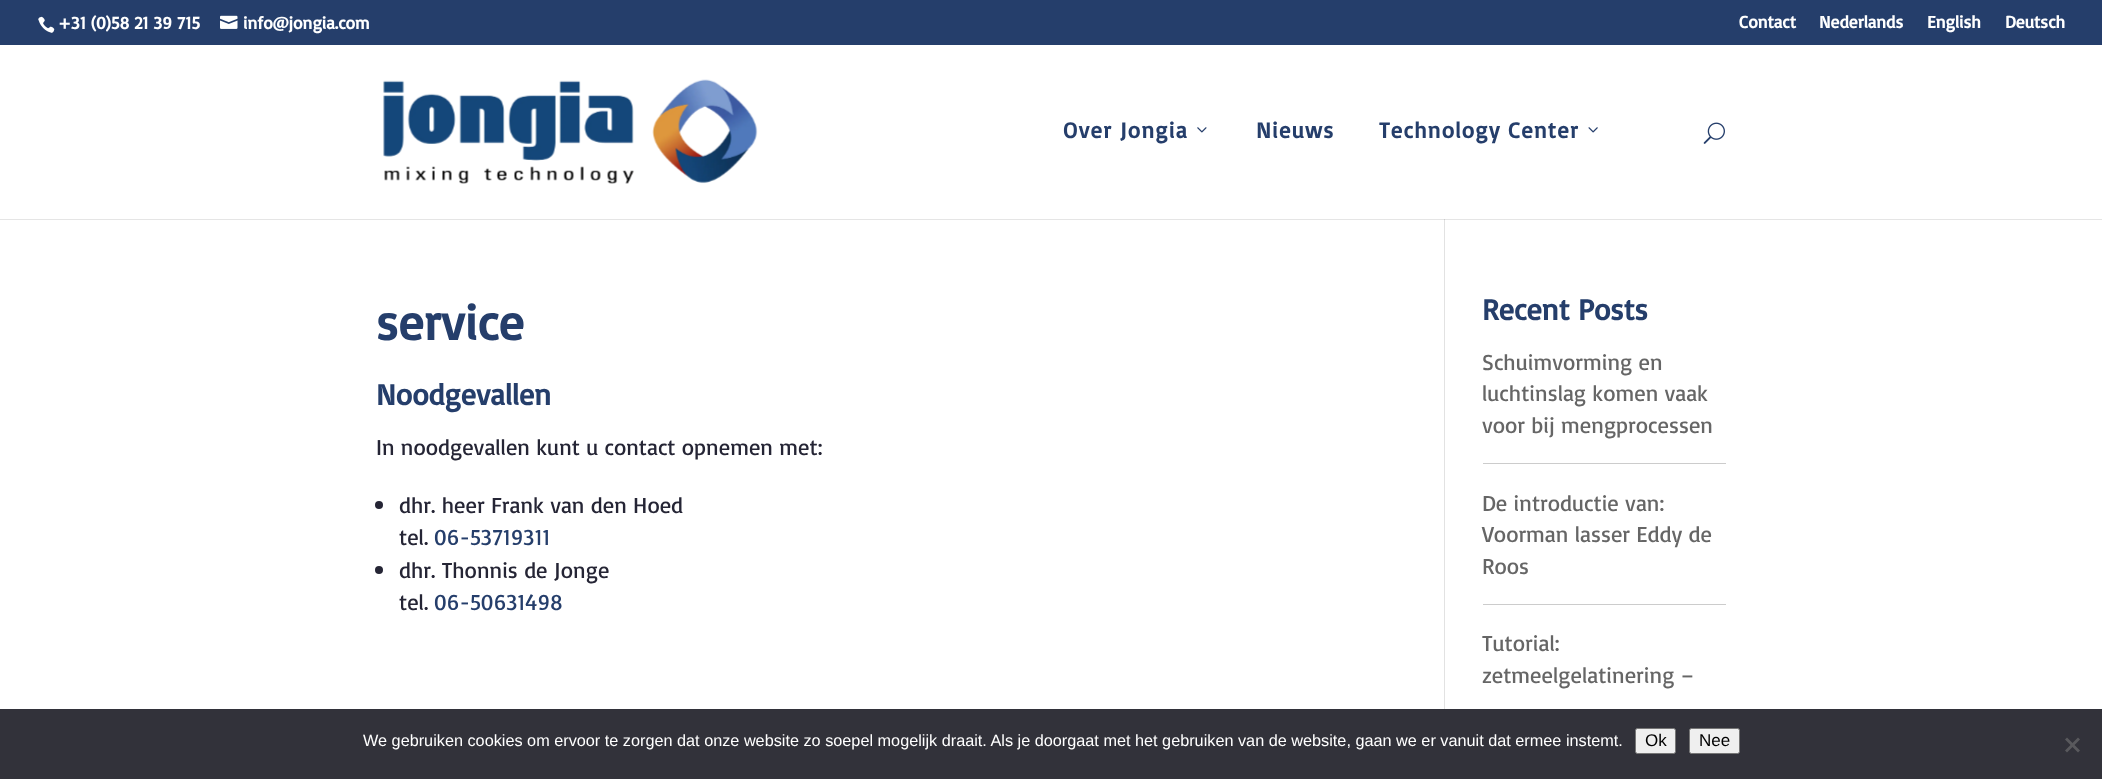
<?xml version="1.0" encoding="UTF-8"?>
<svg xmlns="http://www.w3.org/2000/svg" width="2102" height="779">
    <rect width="100%" height="100%" fill="#FFFFFF"/>
    <rect x="0" y="0" width="2102" height="45" fill="#253E6B"/>
    <image x="38" y="16" width="17" height="17" href="img_01.png"/>
    <text x="58" y="29" font-family="Basic" font-size="17.5" font-weight="700" fill="#FFFFFF">+31 (0)58 21 39 715</text>
    <image x="220" y="15" width="18" height="14" href="img_02.png"/>
    <text x="243" y="29" font-family="Basic" font-size="17.5" font-weight="700" fill="#FFFFFF">info@jongia.com</text>
    <text x="1739" y="28" font-family="Basic" font-size="17.5" font-weight="700" fill="#FFFFFF">Contact</text>
    <text x="1819" y="28" font-family="Basic" font-size="17.5" font-weight="700" fill="#FFFFFF">Nederlands</text>
    <text x="1927" y="28" font-family="Basic" font-size="17.5" font-weight="700" fill="#FFFFFF">English</text>
    <text x="2005" y="28" font-family="Basic" font-size="17.5" font-weight="700" fill="#FFFFFF">Deutsch</text>
    <rect x="1444" y="219" width="1" height="490" fill="#E2E2E2"/>
    <path d="M 0 219 V 220 H 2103 V 46 H 2102 V 219 Z" fill="#000000" fill-opacity="0.1"/>
    <image x="383" y="79" width="375" height="105" href="img_03.png"/>
    <text x="1063" y="138" font-family="Basic" font-size="22.5" font-weight="700" letter-spacing="1.25" fill="#253E6B">Over Jongia</text>
    <image x="1197" y="127" width="10" height="6" href="img_04.png"/>
    <text x="1256" y="138" font-family="Basic" font-size="22.5" font-weight="700" letter-spacing="1.25" fill="#253E6B">Nieuws</text>
    <text x="1379" y="138" font-family="Basic" font-size="22.5" font-weight="700" letter-spacing="1.25" fill="#253E6B">Technology Center</text>
    <image x="1588" y="127" width="10" height="6" href="img_05.png"/>
    <image x="1703" y="122" width="22" height="22" href="img_06.png"/>
    <text x="376" y="340" font-family="Basic" font-size="50" font-weight="700" fill="#253E6B">service</text>
    <text x="376" y="405" font-family="Basic" font-size="30" font-weight="700" fill="#253E6B">Noodgevallen</text>
    <text x="376" y="455" font-family="Basic" font-size="22.5" fill="#252535">In noodgevallen kunt u contact opnemen met:</text>
    <circle cx="379" cy="505" r="4" fill="#252535"/>
    <text font-family="Basic" font-size="22.5" fill="#252535">
        <tspan x="399" y="513">dhr. heer Frank van den Hoed</tspan>
        <tspan x="399" y="545">tel.</tspan>
    </text>
    <text x="434" y="545" font-family="Basic" font-size="22.5" fill="#253E6B">06-53719311</text>
    <circle cx="379" cy="570" r="4" fill="#252535"/>
    <text font-family="Basic" font-size="22.5" fill="#252535">
        <tspan x="399" y="578">dhr. Thonnis de Jonge</tspan>
        <tspan x="399" y="610">tel.</tspan>
    </text>
    <text x="434" y="610" font-family="Basic" font-size="22.5" fill="#253E6B">06-50631498</text>
    <text x="1482" y="320" font-family="Basic" font-size="30" font-weight="700" fill="#253E6B">Recent Posts</text>
    <rect x="1483" y="463" width="243" height="1" fill="#CCCCCC"/>
    <text font-family="Basic" font-size="22.5" fill="#666666">
        <tspan x="1482" y="370">Schuimvorming en</tspan>
        <tspan x="1482" y="401">luchtinslag komen vaak</tspan>
        <tspan x="1482" y="433">voor bij mengprocessen</tspan>
    </text>
    <rect x="1483" y="604" width="243" height="1" fill="#CCCCCC"/>
    <text font-family="Basic" font-size="22.5" fill="#666666">
        <tspan x="1482" y="511">De introductie van:</tspan>
        <tspan x="1482" y="542">Voorman lasser Eddy de</tspan>
        <tspan x="1482" y="574">Roos</tspan>
    </text>
    <text font-family="Basic" font-size="22.5" fill="#666666">
        <tspan x="1482" y="651">Tutorial:</tspan>
        <tspan x="1482" y="683">zetmeelgelatinering –</tspan>
    </text>
    <rect x="0" y="709" width="2102" height="70" fill="#32323A"/>
    <text x="363" y="746" font-family="Liberation Sans" font-size="16.25" fill="#FFFFFF">We gebruiken cookies om ervoor te zorgen dat onze website zo soepel mogelijk draait. Als je doorgaat met het gebruiken van de website, gaan we er vanuit dat ermee instemt.</text>
    <rect x="1635.5" y="728.5" width="40" height="25" rx="2" fill="#EFEFEF" stroke="#767676"/>
    <text x="1645" y="746" font-family="Liberation Sans" font-size="17" fill="#000000">Ok</text>
    <rect x="1689.5" y="728.5" width="50" height="25" rx="2" fill="#EFEFEF" stroke="#767676"/>
    <text x="1699" y="746" font-family="Liberation Sans" font-size="17" fill="#000000">Nee</text>
    <path d="M 2078 737.5 L 2080 739.5 L 2067 752.5 L 2065 750.5 Z" fill="#59595D"/>
    <path d="M 2065 739.5 L 2067 737.5 L 2080 750.5 L 2078 752.5 Z" fill="#59595D"/>
</svg>
